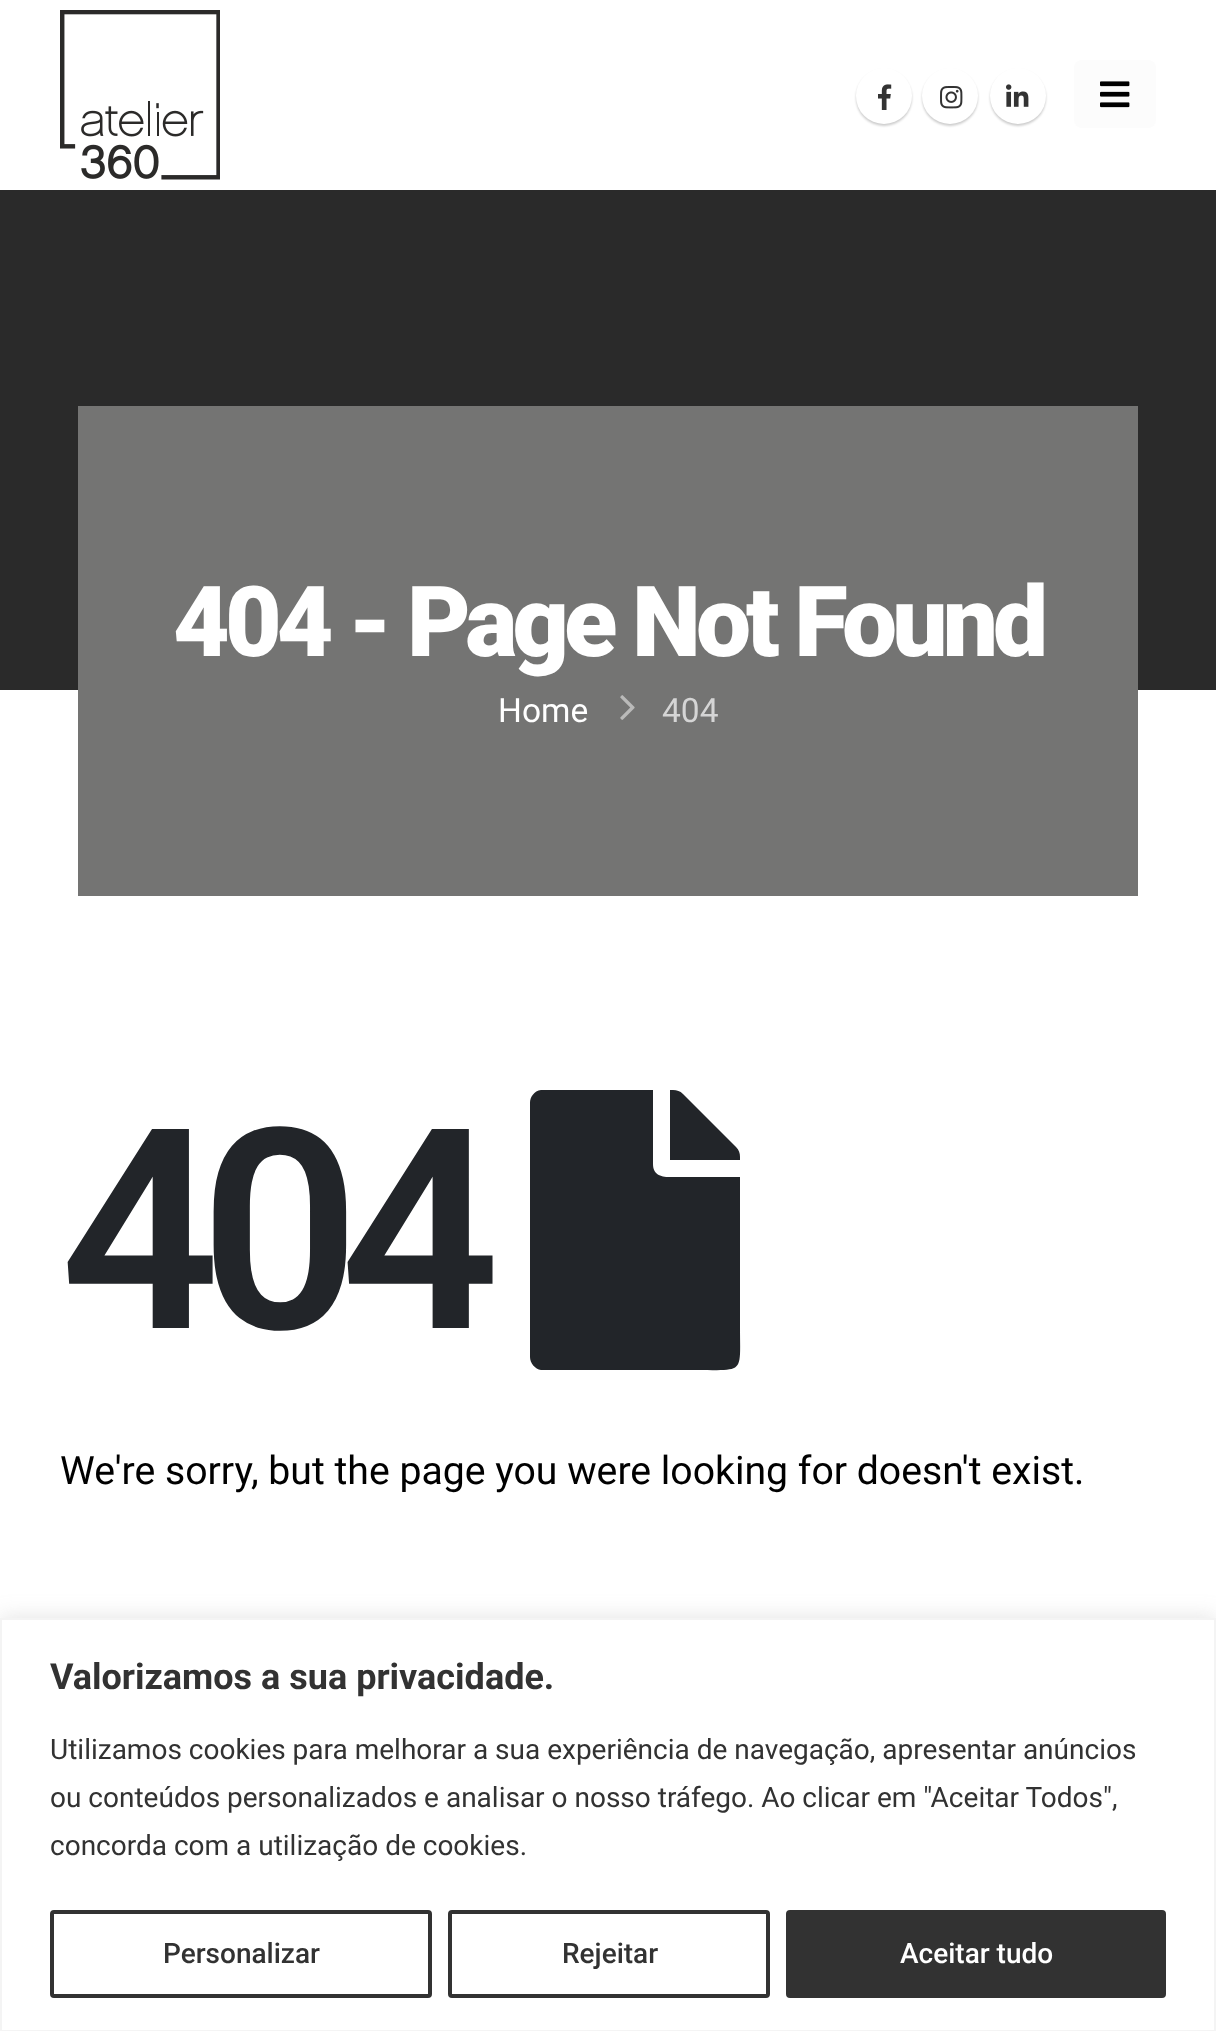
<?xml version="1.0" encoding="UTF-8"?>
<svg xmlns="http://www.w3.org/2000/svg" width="1216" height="2031">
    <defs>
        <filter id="blur1" x="-50%" y="-200%" width="200%" height="500%"><feGaussianBlur stdDeviation="1"/></filter>
        <filter id="blur2" x="-50%" y="-200%" width="200%" height="500%"><feGaussianBlur stdDeviation="10"/></filter>
    </defs>
    <rect width="100%" height="100%" fill="#FFFFFF"/>
    <image x="60" y="10" width="160" height="170" href="img_01.png"/>
    <rect x="856" y="70" width="56" height="56" rx="28" fill="#000000" fill-opacity="0.2" filter="url(#blur1)"/>
    <circle cx="884" cy="96" r="28" fill="#FFFFFF"/>
    <image x="878" y="84" width="14" height="26" href="img_02.png"/>
    <rect x="922" y="70" width="56" height="56" rx="28" fill="#000000" fill-opacity="0.2" filter="url(#blur1)"/>
    <circle cx="950" cy="96" r="28" fill="#FFFFFF"/>
    <image x="940" y="86" width="23" height="23" href="img_03.png"/>
    <rect x="990" y="70" width="56" height="56" rx="28" fill="#000000" fill-opacity="0.2" filter="url(#blur1)"/>
    <circle cx="1018" cy="96" r="28" fill="#FFFFFF"/>
    <image x="1006" y="84" width="23" height="23" href="img_04.png"/>
    <rect x="1074" y="60" width="82" height="68" rx="8" fill="#FCFCFC"/>
    <image x="1100" y="81" width="30" height="27" href="img_05.png"/>
    <rect x="0" y="190" width="1216" height="500" fill="#2A2A2A"/>
    <rect x="78" y="406" width="1060" height="490" fill="#747473"/>
    <text x="173" y="656" font-family="Roboto" font-size="98" font-weight="900" letter-spacing="-4.9" fill="#FFFFFF">404 - Page Not Found</text>
    <text x="498" y="722" font-family="Roboto" font-size="33.5" fill="#FFFFFF">Home</text>
    <image x="620" y="695" width="15" height="25" href="img_06.png"/>
    <text x="662" y="722" font-family="Roboto" font-size="33.5" fill="#D5D5D5">404</text>
    <text x="60" y="1328" font-family="Roboto" font-size="280" font-weight="600" letter-spacing="-20" fill="#222529">404</text>
    <path d="M 653 1164 V 1090 H 541 C 534 1091 530 1097 530 1103 V 1357 C 530 1363 535 1369 541 1370 H 696 C 745 1370 740 1375 740 1327 V 1177 H 678 C 668 1177 653 1179 653 1164 Z M 740 1157 V 1160 H 670 V 1090 H 673 C 677 1090 680 1091 683 1094 L 736 1147 C 739 1150 740 1153 740 1157 Z" fill="#222529"/>
    <text x="60" y="1484" font-family="Roboto" font-size="39.2" fill="#000000">We're sorry, but the page you were looking for doesn't exist.</text>
    <rect x="0" y="1616" width="1216" height="414" fill="#ACABAB" fill-opacity="0.3" filter="url(#blur2)"/>
    <rect x="1" y="1619" width="1214" height="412" fill="#FFFFFF" stroke="#F4F4F4" stroke-width="2"/>
    <text x="50" y="1689" font-family="Roboto" font-size="36" font-weight="700" fill="#323232">Valorizamos a sua privacidade.</text>
    <text font-family="Roboto" font-size="28" fill="#323232">
        <tspan x="50" y="1759">Utilizamos cookies para melhorar a sua experiência de navegação, apresentar anúncios</tspan>
        <tspan x="50" y="1807">ou conteúdos personalizados e analisar o nosso tráfego. Ao clicar em "Aceitar Todos",</tspan>
        <tspan x="50" y="1855">concorda com a utilização de cookies.</tspan>
    </text>
    <rect x="52" y="1912" width="378" height="84" rx="2" fill="none" stroke="#323232" stroke-width="4"/>
    <text x="163" y="1963" font-family="Roboto" font-size="28" font-weight="500" fill="#323232">Personalizar</text>
    <rect x="450" y="1912" width="318" height="84" rx="2" fill="none" stroke="#323232" stroke-width="4"/>
    <text x="562" y="1963" font-family="Roboto" font-size="28" font-weight="500" fill="#323232">Rejeitar</text>
    <rect x="788" y="1912" width="376" height="84" rx="2" fill="#323232" stroke="#323232" stroke-width="4"/>
    <text x="900" y="1963" font-family="Roboto" font-size="28" font-weight="500" fill="#FFFFFF">Aceitar tudo</text>
</svg>
